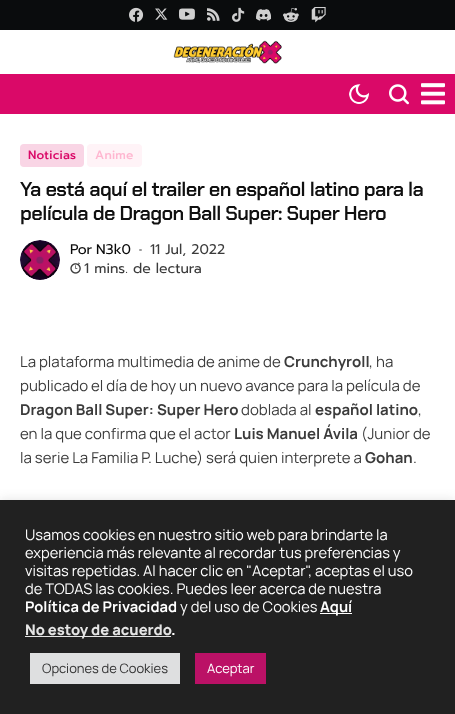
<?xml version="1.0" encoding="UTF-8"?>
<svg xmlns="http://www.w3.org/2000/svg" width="455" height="714">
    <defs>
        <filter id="blur1" x="-50%" y="-200%" width="200%" height="500%"><feGaussianBlur stdDeviation="5"/></filter>
    </defs>
    <rect width="100%" height="100%" fill="#FFFFFF"/>
    <rect x="0" y="0" width="455" height="30" fill="#0A0C0D"/>
    <image x="129" y="7" width="15" height="15" href="img_01.png"/>
    <image x="155" y="8" width="13" height="12" href="img_02.png"/>
    <image x="179" y="8" width="16" height="12" href="img_03.png"/>
    <image x="207" y="8" width="13" height="13" href="img_04.png"/>
    <image x="232" y="7" width="13" height="15" href="img_05.png"/>
    <image x="256" y="9" width="15" height="12" href="img_06.png"/>
    <image x="283" y="8" width="16" height="14" href="img_07.png"/>
    <image x="311" y="7" width="15" height="16" href="img_08.png"/>
    <image x="173" y="40" width="109" height="24" href="img_09.png"/>
    <rect x="0" y="74" width="455" height="40" fill="#DA0968"/>
    <image x="349" y="84" width="20" height="20" href="img_10.png"/>
    <image x="389" y="84" width="20" height="21" href="img_11.png"/>
    <image x="421" y="83" width="24" height="22" href="img_12.png"/>
    <rect x="20" y="144" width="64" height="23" rx="4" fill="#F9D5E5"/>
    <text x="28" y="159" font-family="Prompt" font-size="12" font-weight="500" letter-spacing="0.25" fill="#DA0968">Noticias</text>
    <rect x="87" y="144" width="55" height="23" rx="4" fill="#FFF3F7"/>
    <text x="95" y="159" font-family="Prompt" font-size="12" font-weight="500" letter-spacing="0.25" fill="#FFB6D0">Anime</text>
    <text font-family="Chakra Petch" font-size="20" font-weight="600" letter-spacing="-0.6" fill="#101010">
        <tspan x="20" y="196">Ya está aquí el trailer en español latino para la</tspan>
        <tspan x="20" y="220">película de Dragon Ball Super: Super Hero</tspan>
    </text>
    <image x="20" y="240" width="40" height="40" href="img_13.png"/>
    <text x="70" y="254" font-family="Prompt" font-size="14" fill="#0A0A0A">Por</text>
    <text x="96" y="254" font-family="Prompt" font-size="14" fill="#0A0A0A">N3k0</text>
    <rect x="139" y="249" width="3" height="2" rx="1" fill="#9D9D9D"/>
    <text x="150" y="254" font-family="Prompt" font-size="14" fill="#3B3B3B">11 Jul, 2022</text>
    <image x="70" y="262" width="11" height="12" href="img_14.png"/>
    <text x="84" y="273" font-family="Prompt" font-size="14" fill="#3B3B3B">1 mins. de lectura</text>
    <text x="20" y="367" font-family="Manrope" font-size="15" fill="#3B3B3B">La plataforma multimedia de anime de</text>
    <text x="284" y="367" font-family="Manrope" font-size="15" font-weight="700" fill="#3B3B3B">Crunchyroll</text>
    <text x="369" y="367" font-family="Manrope" font-size="15" fill="#3B3B3B">, ha</text>
    <text x="20" y="391" font-family="Manrope" font-size="15" fill="#3B3B3B">publicado el día de hoy un nuevo avance para la película de</text>
    <text x="20" y="415" font-family="Manrope" font-size="15" font-weight="700" fill="#3B3B3B">Dragon Ball Super: Super Hero</text>
    <text x="241" y="415" font-family="Manrope" font-size="15" fill="#3B3B3B">doblada al</text>
    <text x="315" y="415" font-family="Manrope" font-size="15" font-weight="700" fill="#3B3B3B">español latino</text>
    <text x="418" y="415" font-family="Manrope" font-size="15" fill="#3B3B3B">,</text>
    <text x="20" y="439" font-family="Manrope" font-size="15" fill="#3B3B3B">en la que confirma que el actor</text>
    <text x="234" y="439" font-family="Manrope" font-size="15" font-weight="700" fill="#3B3B3B">Luis Manuel Ávila</text>
    <text x="361" y="439" font-family="Manrope" font-size="15" fill="#3B3B3B">(Junior de</text>
    <text x="20" y="463" font-family="Manrope" font-size="15" fill="#3B3B3B">la serie La Familia P. Luche) será quien interprete a</text>
    <text x="365" y="463" font-family="Manrope" font-size="15" font-weight="700" fill="#3B3B3B">Gohan</text>
    <text x="413" y="463" font-family="Manrope" font-size="15" fill="#3B3B3B">.</text>
    <rect x="0" y="499" width="455" height="214" fill="#ACABAB" fill-opacity="0.3" filter="url(#blur1)"/>
    <rect x="0" y="500" width="455" height="214" fill="#212121"/>
    <text font-family="Manrope" font-size="14.7" fill="#FFFFFF">
        <tspan x="25" y="540">Usamos cookies en nuestro sitio web para brindarte la</tspan>
        <tspan x="25" y="558">experiencia más relevante al recordar tus preferencias y</tspan>
        <tspan x="25" y="576">visitas repetidas. Al hacer clic en "Aceptar", aceptas el uso</tspan>
        <tspan x="25" y="594">de TODAS las cookies. Puedes leer acerca de nuestra</tspan>
    </text>
    <text x="25" y="612" font-family="Manrope" font-size="14.7" font-weight="700" fill="#FFFFFF">Política de Privacidad</text>
    <rect x="320" y="613" width="32" height="1" fill="#FFFFFF"/>
    <text x="320" y="612" font-family="Manrope" font-size="14.7" font-weight="700" fill="#FFFFFF">Aquí</text>
    <rect x="25" y="636" width="146" height="1" fill="#E5E5E5"/>
    <text x="25" y="635" font-family="Manrope" font-size="14.7" font-weight="800" fill="#E5E5E5">No estoy de acuerdo</text>
    <text x="171" y="635" font-family="Manrope" font-size="14.7" font-weight="800" fill="#FFFFFF">.</text>
    <text x="180" y="612" font-family="Manrope" font-size="14.7" fill="#FFFFFF">y del uso de Cookies</text>
    <rect x="30" y="653" width="150" height="31" fill="#DEDFE0"/>
    <text x="42" y="673" font-family="Manrope" font-size="13" fill="#333333">Opciones de Cookies</text>
    <rect x="195" y="653" width="71" height="31" fill="#BB1166"/>
    <text x="207" y="673" font-family="Manrope" font-size="13" fill="#FFFFFF">Aceptar</text>
</svg>
